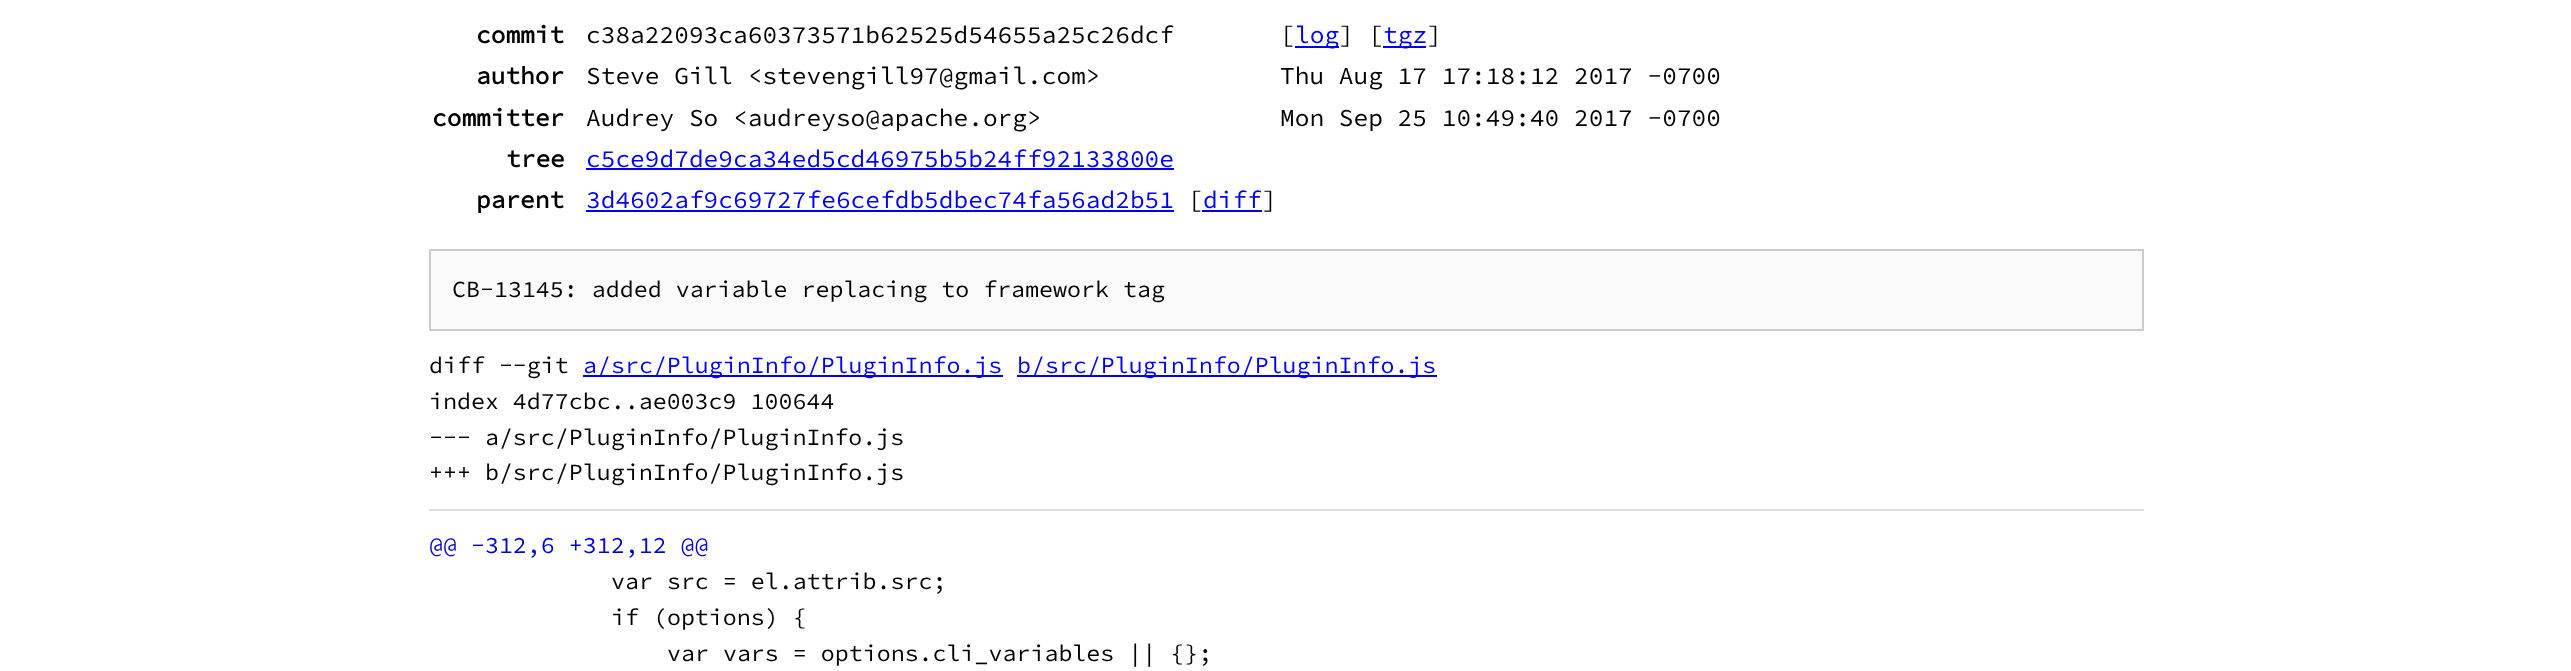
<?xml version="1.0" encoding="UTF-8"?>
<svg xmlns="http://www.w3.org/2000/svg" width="2571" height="671">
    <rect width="100%" height="100%" fill="#FFFFFF"/>
    <text x="476" y="43" font-family="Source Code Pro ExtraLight" font-size="24.5" font-weight="700" fill="#000000">commit</text>
    <text x="586" y="43" font-family="Source Code Pro ExtraLight" font-size="24.5" font-weight="200" fill="#000000">c38a22093ca60373571b62525d54655a25c26dcf</text>
    <text x="1280" y="43" font-family="Source Code Pro ExtraLight" font-size="24.5" font-weight="200" fill="#000000">[</text>
    <rect x="1295" y="46" width="44" height="2" fill="#0000EE"/>
    <text x="1295" y="43" font-family="Source Code Pro ExtraLight" font-size="24.5" font-weight="200" fill="#0000EE">log</text>
    <text x="1339" y="43" font-family="Source Code Pro ExtraLight" font-size="24.5" font-weight="200" fill="#000000">] [</text>
    <rect x="1383" y="46" width="43" height="2" fill="#0000EE"/>
    <text x="1383" y="43" font-family="Source Code Pro ExtraLight" font-size="24.5" font-weight="200" fill="#0000EE">tgz</text>
    <text x="1427" y="43" font-family="Source Code Pro ExtraLight" font-size="24.5" font-weight="200" fill="#000000">]</text>
    <text x="476" y="84" font-family="Source Code Pro ExtraLight" font-size="24.5" font-weight="700" fill="#000000">author</text>
    <text x="586" y="84" font-family="Source Code Pro ExtraLight" font-size="24.5" font-weight="200" fill="#000000">Steve Gill &lt;stevengill97@gmail.com&gt;</text>
    <text x="1280" y="84" font-family="Source Code Pro ExtraLight" font-size="24.5" font-weight="200" fill="#000000">Thu Aug 17 17:18:12 2017 -0700</text>
    <text x="432" y="126" font-family="Source Code Pro ExtraLight" font-size="24.5" font-weight="700" fill="#000000">committer</text>
    <text x="586" y="126" font-family="Source Code Pro ExtraLight" font-size="24.5" font-weight="200" fill="#000000">Audrey So &lt;audreyso@apache.org&gt;</text>
    <text x="1280" y="126" font-family="Source Code Pro ExtraLight" font-size="24.5" font-weight="200" fill="#000000">Mon Sep 25 10:49:40 2017 -0700</text>
    <text x="506" y="167" font-family="Source Code Pro ExtraLight" font-size="24.5" font-weight="700" fill="#000000">tree</text>
    <text x="586" y="167" font-family="Source Code Pro ExtraLight" font-size="24.5" font-weight="200" fill="#0000EE">c5ce9d7de9ca34ed5cd46975b5b24ff92133800e</text>
    <rect x="586" y="168" width="588" height="2" fill="#0000EE"/>
    <text x="476" y="208" font-family="Source Code Pro ExtraLight" font-size="24.5" font-weight="700" fill="#000000">parent</text>
    <text x="586" y="208" font-family="Source Code Pro ExtraLight" font-size="24.5" font-weight="200" fill="#0000EE">3d4602af9c69727fe6cefdb5dbec74fa56ad2b51</text>
    <rect x="586" y="210" width="588" height="2" fill="#0000EE"/>
    <text x="1188" y="208" font-family="Source Code Pro ExtraLight" font-size="24.5" font-weight="200" fill="#000000">[</text>
    <rect x="1202" y="210" width="60" height="2" fill="#0000EE"/>
    <text x="1203" y="208" font-family="Source Code Pro ExtraLight" font-size="24.5" font-weight="200" fill="#0000EE">diff</text>
    <text x="1262" y="208" font-family="Source Code Pro ExtraLight" font-size="24.5" font-weight="200" fill="#000000">]</text>
    <rect x="430" y="250" width="1713" height="80" fill="#FAFAFA" stroke="#CCCCCC" stroke-width="2"/>
    <text x="452" y="297" font-family="Source Code Pro ExtraLight" font-size="23.3" font-weight="200" fill="#000000">CB-13145: added variable replacing to framework tag</text>
    <text x="429" y="373" font-family="Source Code Pro ExtraLight" font-size="23.3" font-weight="200" fill="#000000">diff --git</text>
    <rect x="583" y="375" width="420" height="2" fill="#0000EE"/>
    <text x="583" y="373" font-family="Source Code Pro ExtraLight" font-size="23.3" font-weight="200" fill="#0000EE">a/src/PluginInfo/PluginInfo.js</text>
    <rect x="1017" y="375" width="420" height="2" fill="#0000EE"/>
    <text x="1017" y="373" font-family="Source Code Pro ExtraLight" font-size="23.3" font-weight="200" fill="#0000EE">b/src/PluginInfo/PluginInfo.js</text>
    <text font-family="Source Code Pro ExtraLight" font-size="23.3" font-weight="200" fill="#000000">
        <tspan x="429" y="409">index 4d77cbc..ae003c9 100644</tspan>
        <tspan x="429" y="445">--- a/src/PluginInfo/PluginInfo.js</tspan>
        <tspan x="429" y="480">+++ b/src/PluginInfo/PluginInfo.js</tspan>
    </text>
    <rect x="429" y="509" width="1715" height="2" fill="#DDDDDD"/>
    <text x="429" y="553" font-family="Source Code Pro ExtraLight" font-size="23.3" font-weight="200" fill="#0000CC">@@ -312,6 +312,12 @@</text>
    <text font-family="Source Code Pro ExtraLight" font-size="23.3" font-weight="200" fill="#000000">
        <tspan x="611" y="589">var src = el.attrib.src;</tspan>
        <tspan x="611" y="625">if (options) {</tspan>
    </text>
    <text x="667" y="661" font-family="Source Code Pro ExtraLight" font-size="23.3" font-weight="200" fill="#000000">var vars = options.cli_variables || {};</text>
</svg>
